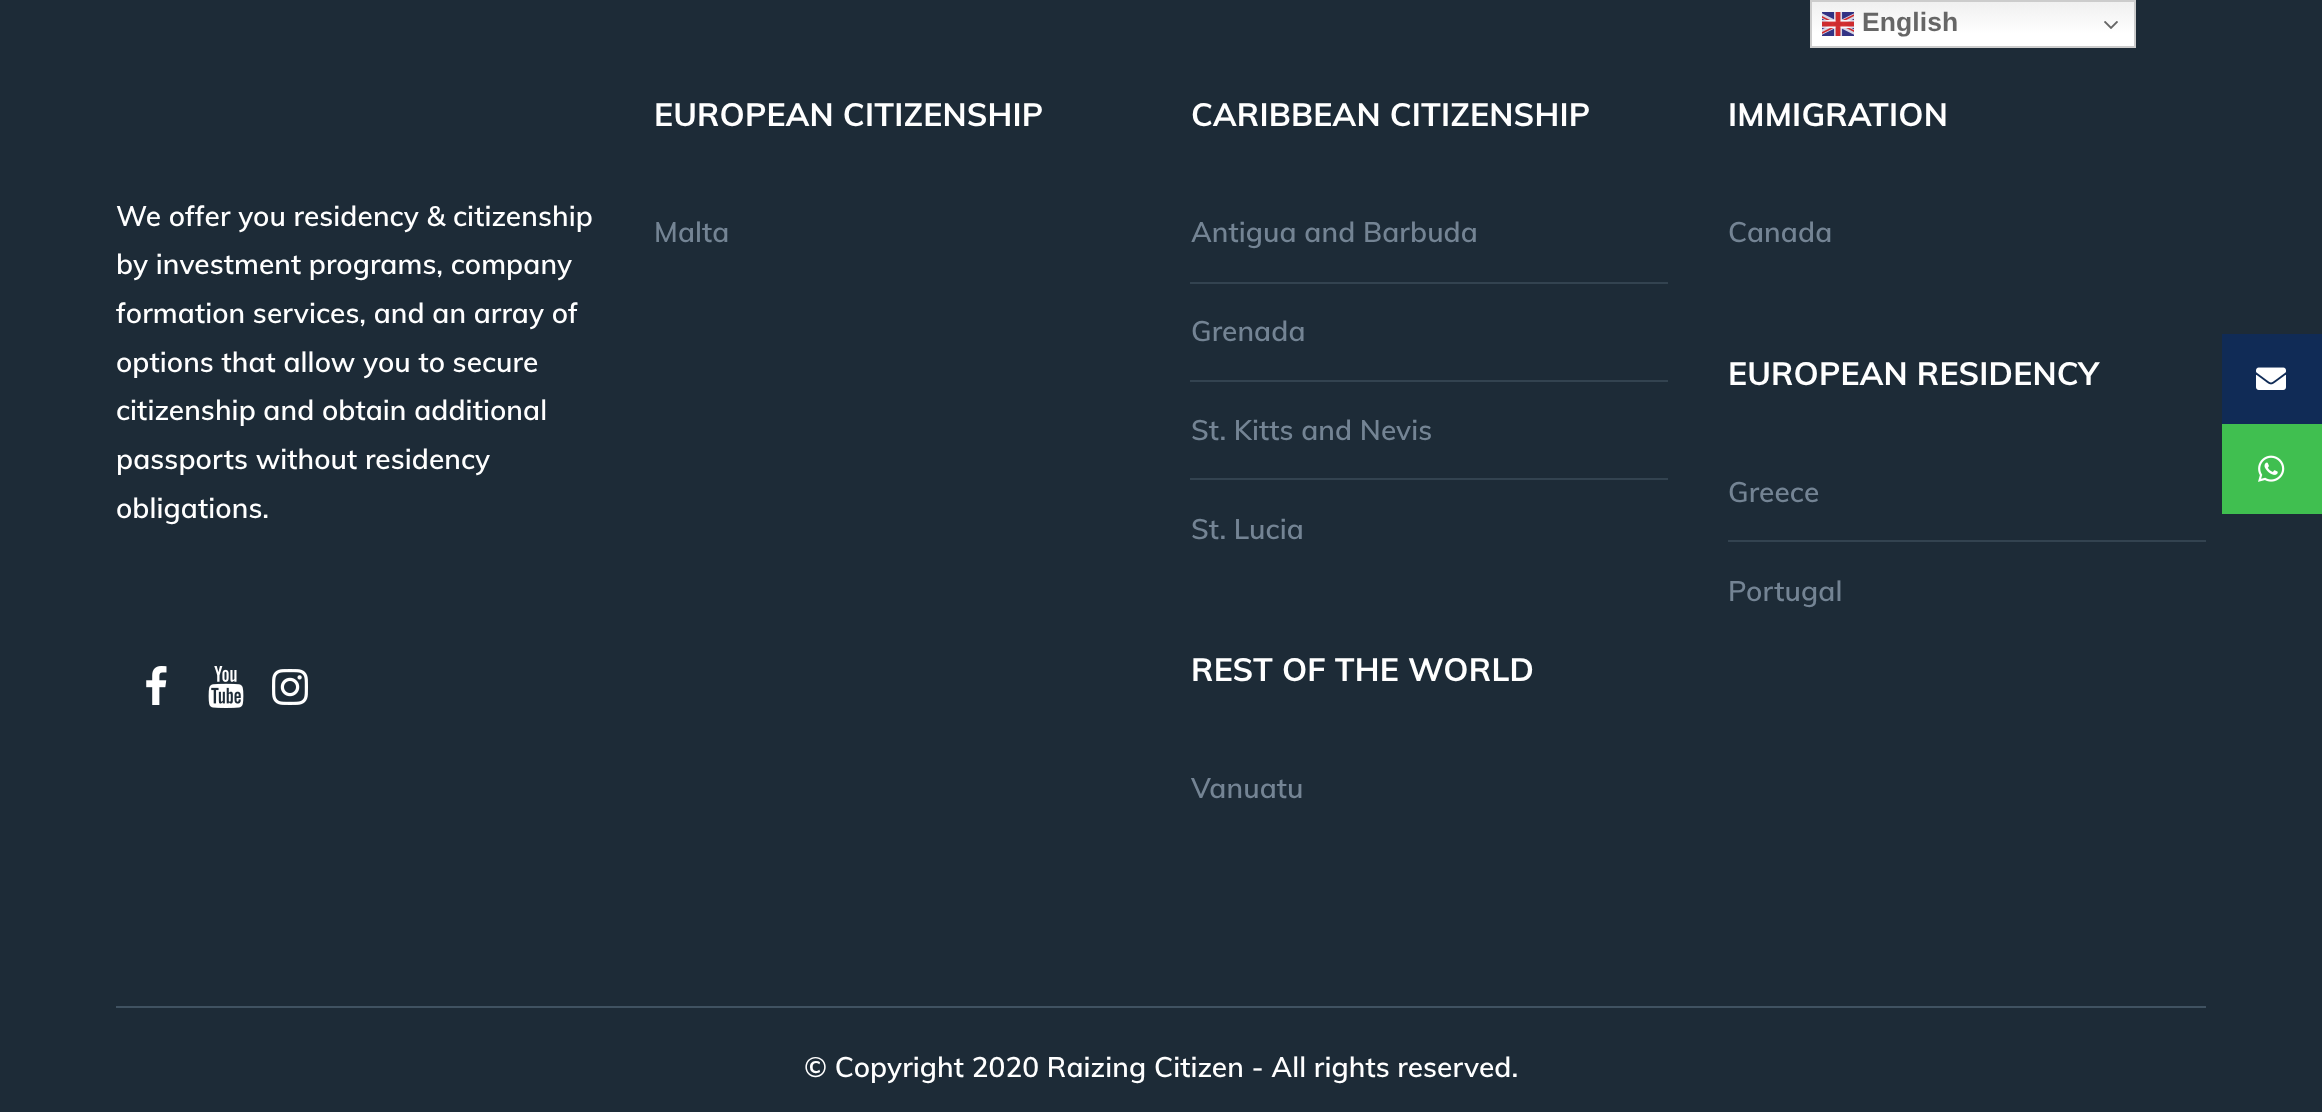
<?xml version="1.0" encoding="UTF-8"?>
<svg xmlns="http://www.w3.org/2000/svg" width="2322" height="1112">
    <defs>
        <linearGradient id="g1" gradientUnits="userSpaceOnUse" x1="1973" y1="0" x2="1973" y2="48"><stop offset="0" stop-color="#EFEFEF"/><stop offset="0.7" stop-color="#FFFFFF"/></linearGradient>
    </defs>
    <rect width="100%" height="100%" fill="#1D2B37"/>
    <rect x="1812" y="2" width="322" height="44" fill="url(#g1)"/>
    <rect x="1811" y="1" width="324" height="46" fill="none" stroke="#CCCCCC" stroke-width="2"/>
    <image x="1822" y="12" width="32" height="24" href="img_01.png"/>
    <text x="1862" y="31" font-family="Liberation Sans" font-size="26.5" font-weight="700" letter-spacing="0.1" fill="#666666">English</text>
    <image x="2104" y="21" width="14" height="8" href="img_02.png"/>
    <text font-family="Muli" font-size="28" font-weight="600" letter-spacing="0.1" fill="#FFFFFF">
        <tspan x="116" y="226">We offer you residency &amp; citizenship</tspan>
        <tspan x="116" y="274">by investment programs, company</tspan>
        <tspan x="116" y="323">formation services, and an array of</tspan>
        <tspan x="116" y="372">options that allow you to secure</tspan>
        <tspan x="116" y="420">citizenship and obtain additional</tspan>
        <tspan x="116" y="469">passports without residency</tspan>
        <tspan x="116" y="518">obligations.</tspan>
    </text>
    <image x="146" y="666" width="21" height="39" href="img_03.png"/>
    <image x="208" y="666" width="36" height="42" href="img_04.png"/>
    <image x="272" y="669" width="36" height="36" href="img_05.png"/>
    <text x="654" y="126" font-family="Muli" font-size="32" font-weight="700" letter-spacing="0.2" fill="#FFFFFF">EUROPEAN CITIZENSHIP</text>
    <text x="654" y="242" font-family="Muli" font-size="28" font-weight="600" letter-spacing="0.1" fill="#748494">Malta</text>
    <text x="1191" y="126" font-family="Muli" font-size="32" font-weight="700" letter-spacing="0.2" fill="#FFFFFF">CARIBBEAN CITIZENSHIP</text>
    <text x="1191" y="242" font-family="Muli" font-size="28" font-weight="600" letter-spacing="0.1" fill="#748494">Antigua and Barbuda</text>
    <rect x="1190" y="282" width="478" height="2" fill="#334350"/>
    <text x="1191" y="341" font-family="Muli" font-size="28" font-weight="600" letter-spacing="0.1" fill="#748494">Grenada</text>
    <rect x="1190" y="380" width="478" height="2" fill="#334350"/>
    <text x="1191" y="440" font-family="Muli" font-size="28" font-weight="600" letter-spacing="0.1" fill="#748494">St. Kitts and Nevis</text>
    <rect x="1190" y="478" width="478" height="2" fill="#334350"/>
    <text x="1191" y="539" font-family="Muli" font-size="28" font-weight="600" letter-spacing="0.1" fill="#748494">St. Lucia</text>
    <text x="1191" y="681" font-family="Muli" font-size="32" font-weight="700" letter-spacing="0.2" fill="#FFFFFF">REST OF THE WORLD</text>
    <text x="1191" y="798" font-family="Muli" font-size="28" font-weight="600" letter-spacing="0.1" fill="#748494">Vanuatu</text>
    <text x="1728" y="126" font-family="Muli" font-size="32" font-weight="700" letter-spacing="0.2" fill="#FFFFFF">IMMIGRATION</text>
    <text x="1728" y="242" font-family="Muli" font-size="28" font-weight="600" letter-spacing="0.1" fill="#748494">Canada</text>
    <text x="1728" y="385" font-family="Muli" font-size="32" font-weight="700" letter-spacing="0.2" fill="#FFFFFF">EUROPEAN RESIDENCY</text>
    <text x="1728" y="502" font-family="Muli" font-size="28" font-weight="600" letter-spacing="0.1" fill="#748494">Greece</text>
    <rect x="1728" y="540" width="478" height="2" fill="#334350"/>
    <text x="1728" y="601" font-family="Muli" font-size="28" font-weight="600" letter-spacing="0.1" fill="#748494">Portugal</text>
    <rect x="116" y="1006" width="2090" height="2" fill="#405261"/>
    <text x="804" y="1077" font-family="Muli" font-size="28" font-weight="600" letter-spacing="0.1" fill="#FFFFFF">© Copyright 2020 Raizing Citizen - All rights reserved.</text>
    <rect x="2222" y="334" width="100" height="90" fill="#102B56"/>
    <image x="2256" y="367" width="30" height="23" href="img_06.png"/>
    <rect x="2222" y="424" width="100" height="90" fill="#40BF50"/>
    <image x="2258" y="455" width="27" height="27" href="img_07.png"/>
</svg>
